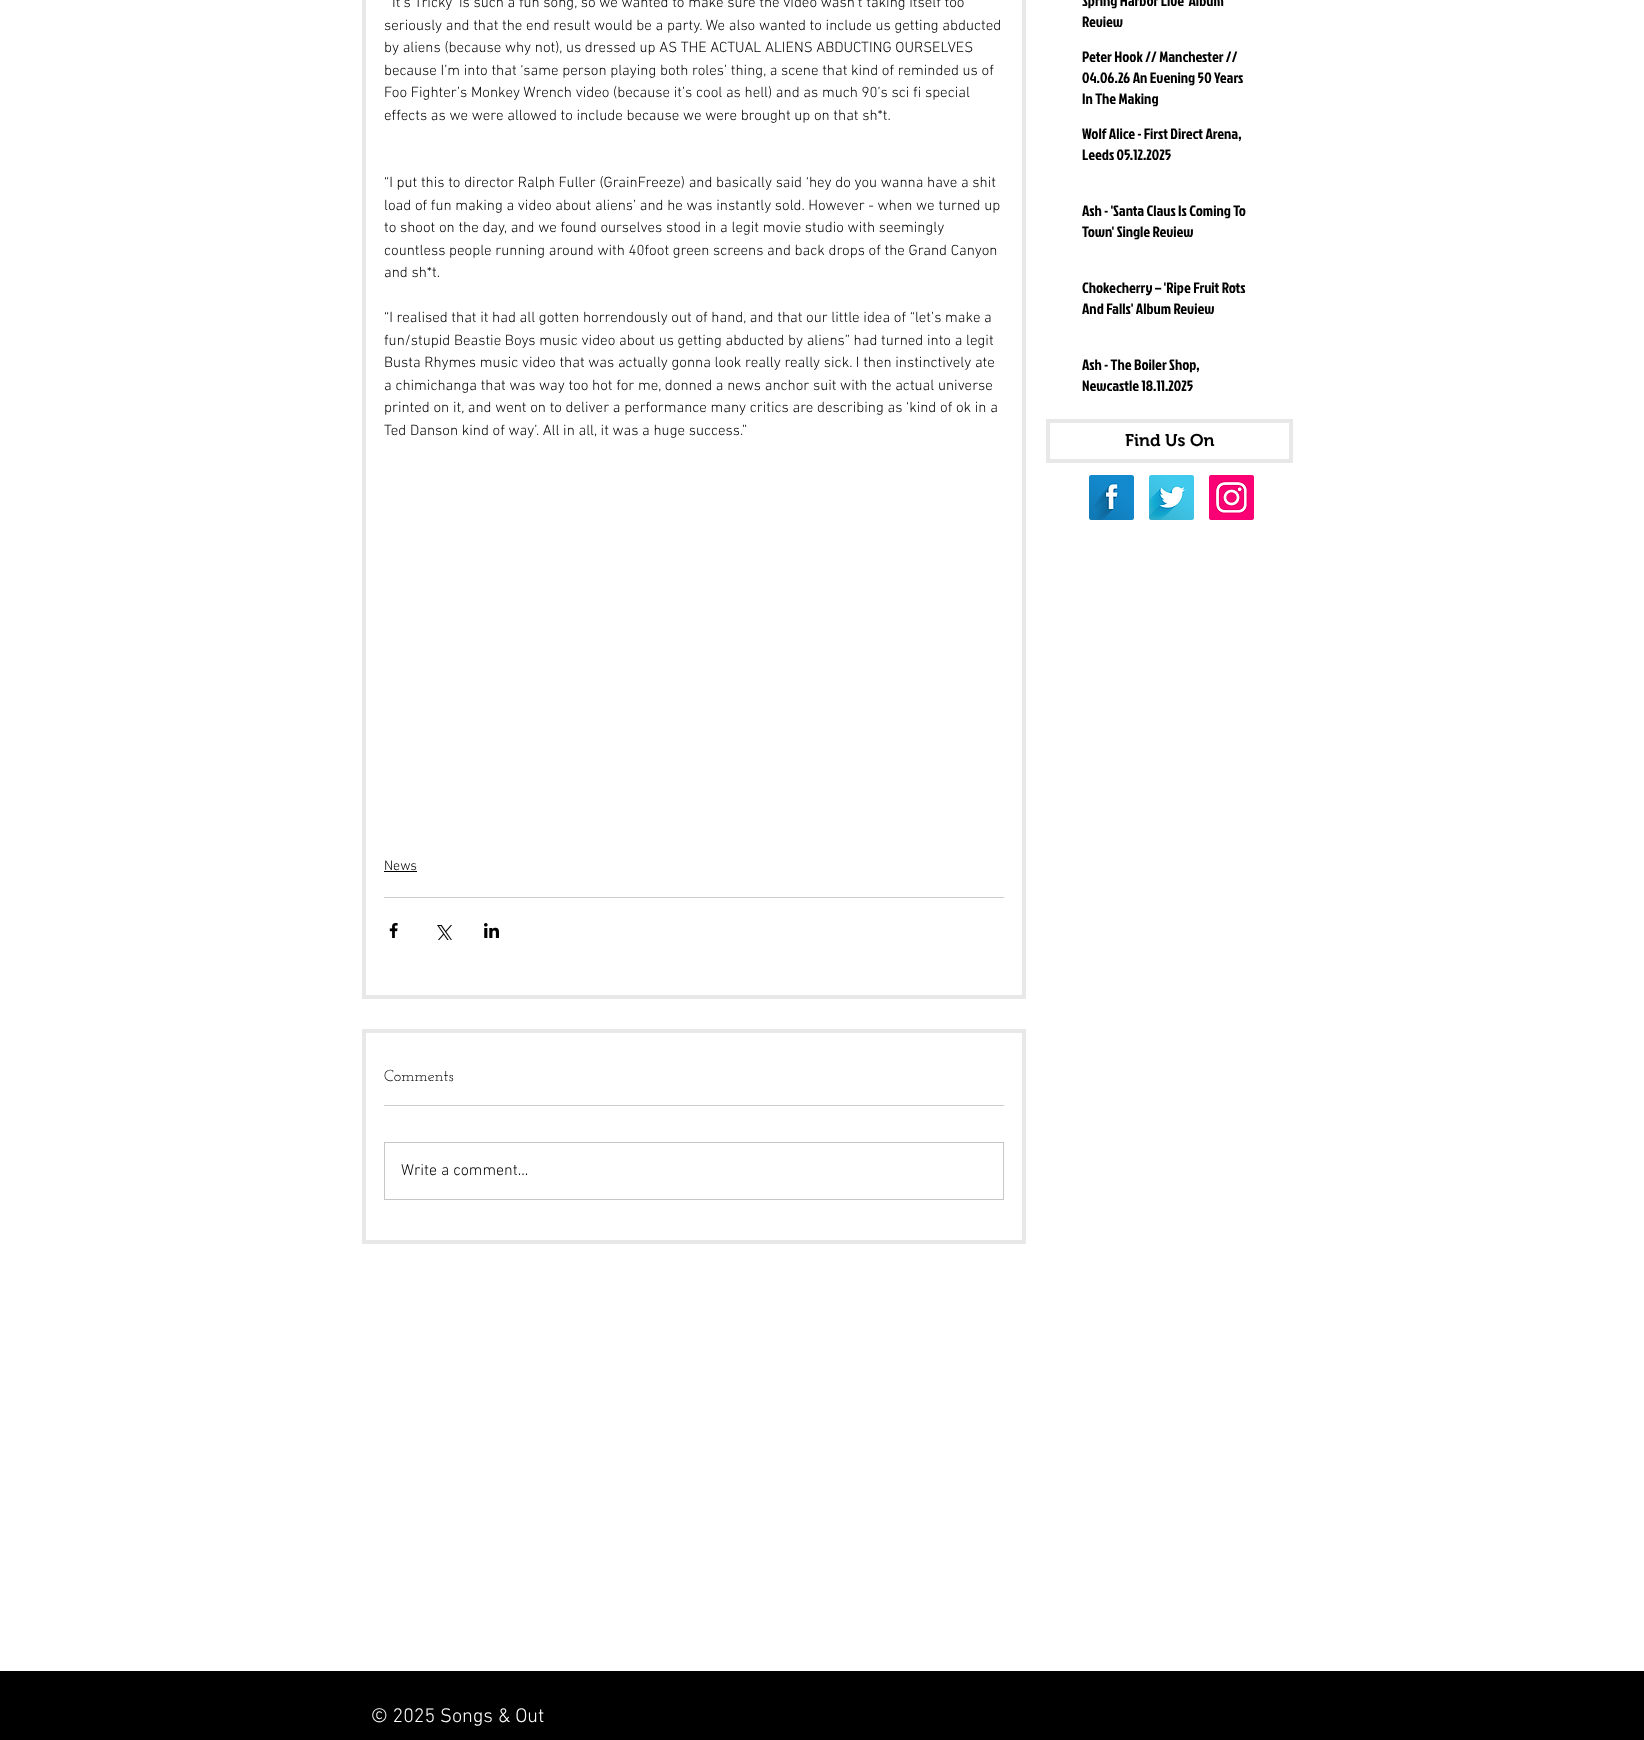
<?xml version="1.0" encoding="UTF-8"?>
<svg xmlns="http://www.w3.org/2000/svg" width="1644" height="1740">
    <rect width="100%" height="100%" fill="#FFFFFF"/>
    <rect x="364" y="-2" width="660" height="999" fill="none" stroke="#E8E8E8" stroke-width="4"/>
    <text x="392" y="7" font-family="'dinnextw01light'" font-size="15" font-weight="300" fill="#000000">It’s Tricky’ is such a fun song, so we wanted to make sure the video wasn’t taking itself too</text>
    <text font-family="'dinnextw01light'" font-size="15" font-weight="300" fill="#000000">
        <tspan x="384" y="30">seriously and that the end result would be a party. We also wanted to include us getting abducted</tspan>
        <tspan x="384" y="52">by aliens (because why not), us dressed up AS THE ACTUAL ALIENS ABDUCTING OURSELVES</tspan>
        <tspan x="384" y="75">because I’m into that ‘same person playing both roles’ thing, a scene that kind of reminded us of</tspan>
        <tspan x="384" y="97">Foo Fighter’s Monkey Wrench video (because it’s cool as hell) and as much 90’s sci fi special</tspan>
        <tspan x="384" y="120">effects as we were allowed to include because we were brought up on that sh*t.</tspan>
    </text>
    <text font-family="'dinnextw01light'" font-size="15" font-weight="300" fill="#000000">
        <tspan x="384" y="187">“I put this to director Ralph Fuller (GrainFreeze) and basically said ‘hey do you wanna have a shit</tspan>
        <tspan x="384" y="210">load of fun making a video about aliens’ and he was instantly sold. However - when we turned up</tspan>
        <tspan x="384" y="232">to shoot on the day, and we found ourselves stood in a legit movie studio with seemingly</tspan>
        <tspan x="384" y="255">countless people running around with 40foot green screens and back drops of the Grand Canyon</tspan>
        <tspan x="384" y="277">and sh*t.</tspan>
    </text>
    <text font-family="'dinnextw01light'" font-size="15" font-weight="300" fill="#000000">
        <tspan x="384" y="322">“I realised that it had all gotten horrendously out of hand, and that our little idea of “let’s make a</tspan>
        <tspan x="384" y="345">fun/stupid Beastie Boys music video about us getting abducted by aliens” had turned into a legit</tspan>
        <tspan x="384" y="367">Busta Rhymes music video that was actually gonna look really really sick. I then instinctively ate</tspan>
        <tspan x="384" y="390">a chimichanga that was way too hot for me, donned a news anchor suit with the actual universe</tspan>
        <tspan x="384" y="412">printed on it, and went on to deliver a performance many critics are describing as ‘kind of ok in a</tspan>
        <tspan x="384" y="435">Ted Danson kind of way’. All in all, it was a huge success.”</tspan>
    </text>
    <text x="384" y="870" font-family="'dinnextw01light'" font-size="14" font-weight="300" fill="#000000">News</text>
    <rect x="384" y="871" width="33" height="1" fill="#000000"/>
    <rect x="384" y="897" width="620" height="1" fill="#CCCCCC"/>
    <image x="389" y="923" width="9" height="15" href="img_01.png"/>
    <image x="437" y="925" width="15" height="15" href="img_02.png"/>
    <image x="484" y="923" width="15" height="15" href="img_03.png"/>
    <rect x="364" y="1031" width="660" height="211" fill="none" stroke="#E8E8E8" stroke-width="4"/>
    <text x="384" y="1081" font-family="Josefin Slab" font-size="16" fill="#000000">Comments</text>
    <rect x="384" y="1105" width="620" height="1" fill="#CCCCCC"/>
    <rect x="384.5" y="1142.5" width="619" height="57" fill="none" stroke="#C7C7C7"/>
    <text x="401" y="1175" font-family="'dinnextw01light'" font-size="16" font-weight="300" fill="#000000">Write a comment...</text>
    <text font-family="Jockey One" font-size="15" fill="#000000">
        <tspan x="1082" y="6">Spring Harbor Live' Album</tspan>
        <tspan x="1082" y="27">Review</tspan>
    </text>
    <text font-family="Jockey One" font-size="15" fill="#000000">
        <tspan x="1082" y="62">Peter Hook // Manchester //</tspan>
        <tspan x="1082" y="83">04.06.26 An Evening 50 Years</tspan>
        <tspan x="1082" y="104">In The Making</tspan>
    </text>
    <text font-family="Jockey One" font-size="15" fill="#000000">
        <tspan x="1082" y="139">Wolf Alice - First Direct Arena,</tspan>
        <tspan x="1082" y="160">Leeds 05.12.2025</tspan>
    </text>
    <text font-family="Jockey One" font-size="15" fill="#000000">
        <tspan x="1082" y="216">Ash - 'Santa Claus Is Coming To</tspan>
        <tspan x="1082" y="237">Town' Single Review</tspan>
    </text>
    <text font-family="Jockey One" font-size="15" fill="#000000">
        <tspan x="1082" y="293">Chokecherry – 'Ripe Fruit Rots</tspan>
        <tspan x="1082" y="314">And Falls' Album Review</tspan>
    </text>
    <text font-family="Jockey One" font-size="15" fill="#000000">
        <tspan x="1082" y="370">Ash - The Boiler Shop,</tspan>
        <tspan x="1082" y="391">Newcastle 18.11.2025</tspan>
    </text>
    <rect x="1048" y="421" width="243" height="40" fill="none" stroke="#E8E8E8" stroke-width="4"/>
    <text x="1125" y="446" font-family="'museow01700'" font-size="17" font-weight="600" fill="#000000">Find Us On</text>
    <image x="1089" y="475" width="45" height="45" href="img_04.png"/>
    <image x="1149" y="475" width="45" height="45" href="img_05.png"/>
    <image x="1209" y="475" width="45" height="45" href="img_06.png"/>
    <rect x="0" y="1671" width="1644" height="69" fill="#000000"/>
    <text x="371" y="1722" font-family="'dinnextw01light'" font-size="20" font-weight="300" fill="#FFFFFF">© 2025 Songs &amp; Out</text>
</svg>
